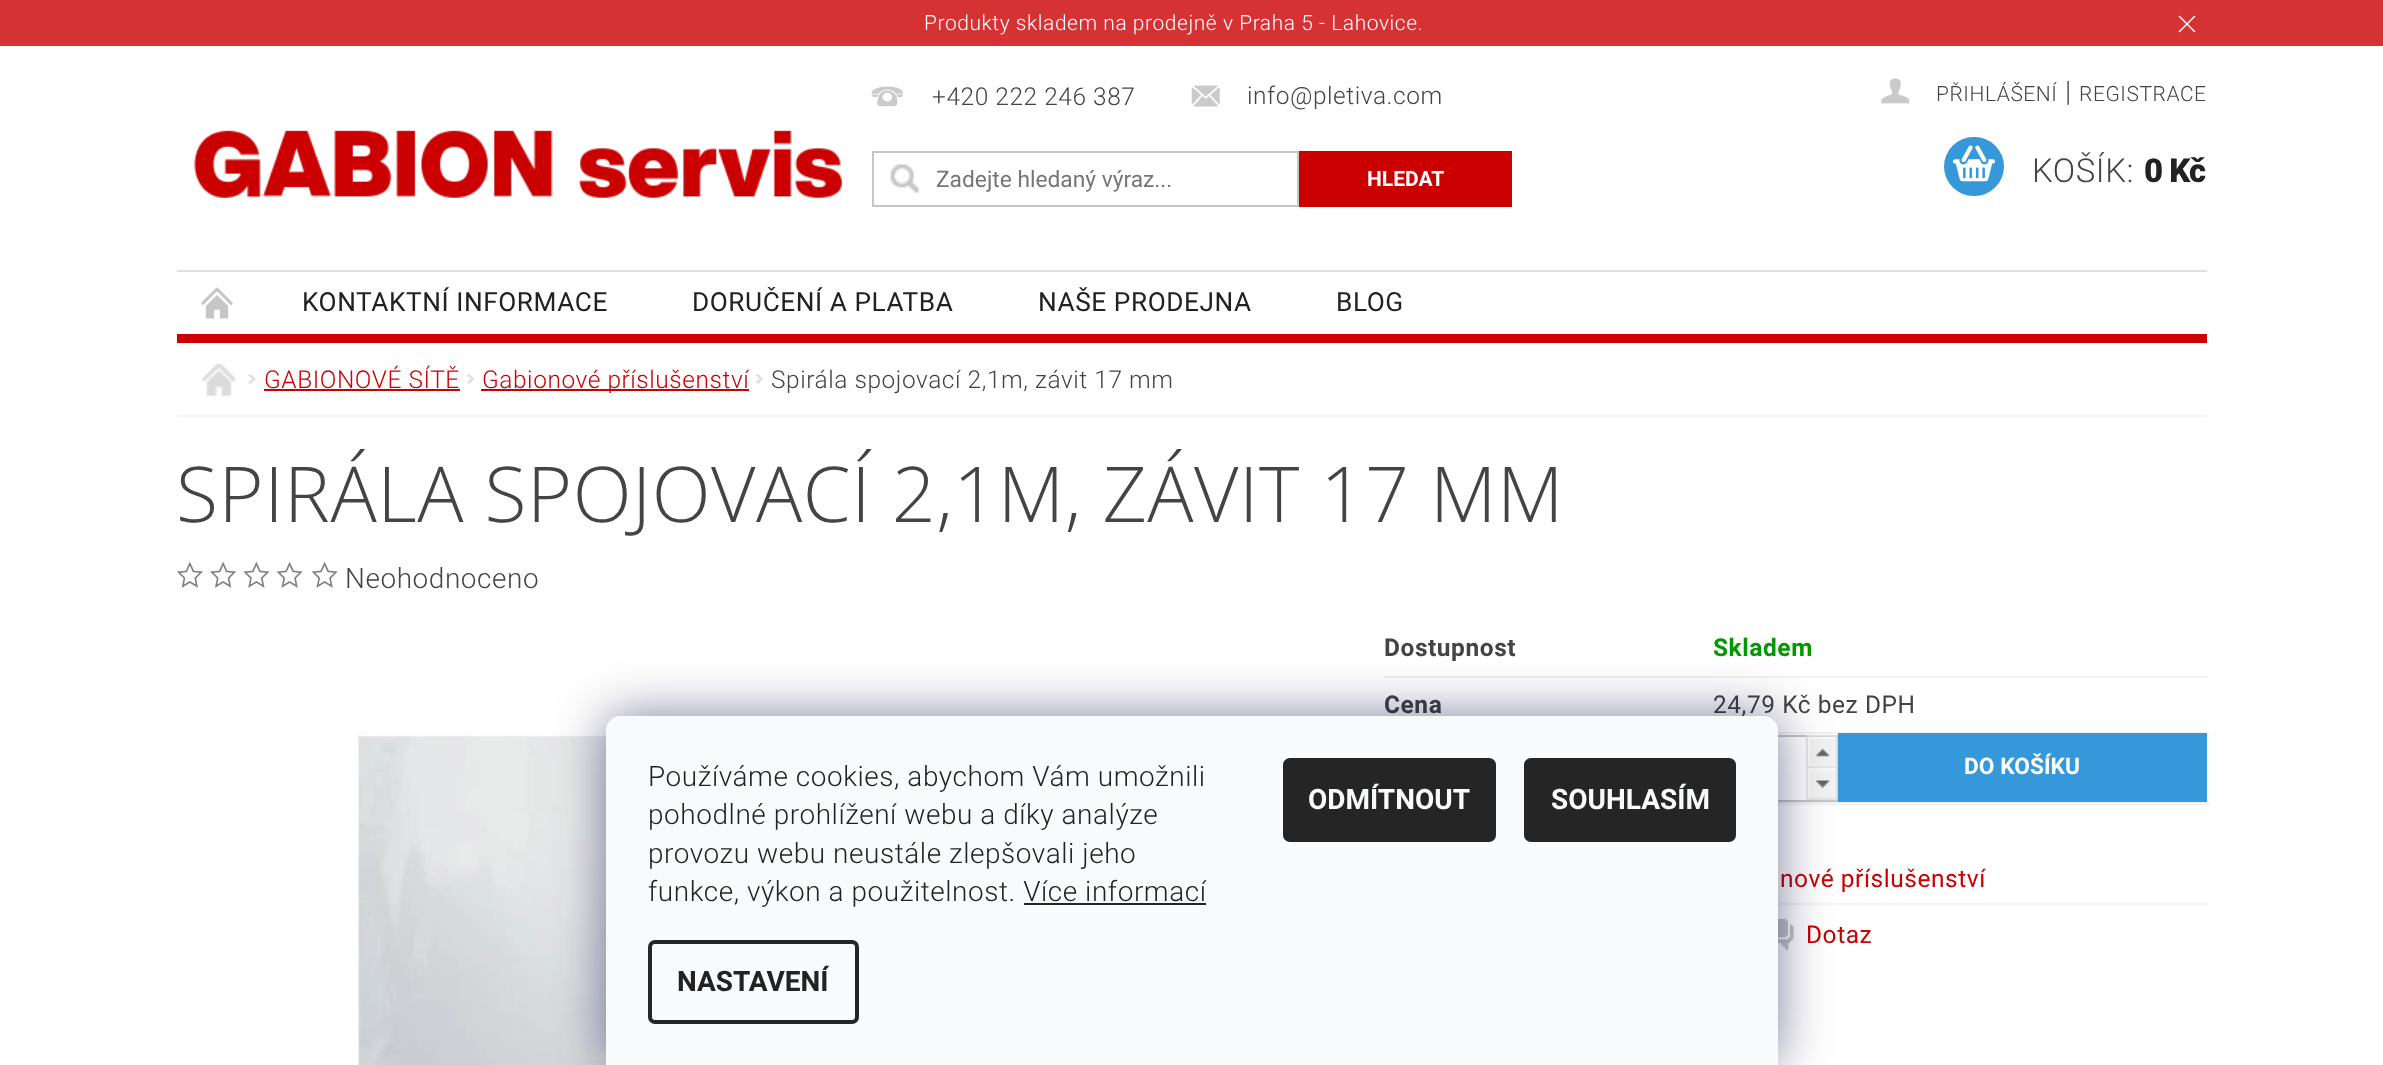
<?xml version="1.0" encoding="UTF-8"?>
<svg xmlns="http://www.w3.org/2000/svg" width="2383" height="1065">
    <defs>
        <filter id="blur1" x="-50%" y="-200%" width="200%" height="500%"><feGaussianBlur stdDeviation="26"/></filter>
    </defs>
    <rect width="100%" height="100%" fill="#FFFFFF"/>
    <rect x="0" y="0" width="2383" height="46" fill="#D53333"/>
    <text x="924" y="30" font-family="Roboto" font-size="21" font-weight="300" letter-spacing="0.55" fill="#FFFFFF">Produkty skladem na prodejně v Praha 5 - Lahovice.</text>
    <path d="M 2179.5 15.5 L 2195.5 31.5 L 2194.5 32.5 L 2178.5 16.5 Z" fill="#FFFFFF"/>
    <path d="M 2194.5 15.5 L 2195.5 16.5 L 2179.5 32.5 L 2178.5 31.5 Z" fill="#FFFFFF"/>
    <rect x="177" y="334" width="2030" height="9" fill="#CB0000"/>
    <image x="194" y="130" width="648" height="68" href="img_01.png"/>
    <image x="871" y="86" width="32" height="21" href="img_02.png"/>
    <text x="932" y="105" font-family="Roboto" font-size="24.5" font-weight="300" letter-spacing="0.55" fill="#444444">+420 222 246 387</text>
    <image x="1191" y="85" width="29" height="22" href="img_03.png"/>
    <text x="1247" y="104" font-family="Roboto" font-size="24.5" font-weight="300" letter-spacing="0.55" fill="#444444">info@pletiva.com</text>
    <image x="890" y="164" width="30" height="29" href="img_04.png"/>
    <rect x="873" y="152" width="425" height="54" fill="none" stroke="#C6C6C6" stroke-width="2"/>
    <text x="936" y="187" font-family="Roboto" font-size="22.75" fill="#757575">Zadejte hledaný výraz...</text>
    <rect x="1299" y="151" width="213" height="56" fill="#CB0000"/>
    <text x="1367" y="186" font-family="Roboto" font-size="21" font-weight="700" fill="#FFFFFF">HLEDAT</text>
    <image x="1881" y="78" width="29" height="26" href="img_05.png"/>
    <text x="1936" y="101" font-family="Roboto" font-size="21" font-weight="300" letter-spacing="0.55" fill="#444444">PŘIHLÁŠENÍ</text>
    <text x="2065" y="101" font-family="Roboto" font-size="28" font-weight="300" letter-spacing="0.55" fill="#444444">|</text>
    <text x="2079" y="101" font-family="Roboto" font-size="21" font-weight="300" letter-spacing="0.55" fill="#444444">REGISTRACE</text>
    <rect x="1944" y="137" width="60" height="59" rx="29.5" fill="#3498DB"/>
    <image x="1953" y="145" width="42" height="37" href="img_06.png"/>
    <text x="2032" y="182" font-family="Roboto" font-size="33" font-weight="300" letter-spacing="0.55" fill="#444444">KOŠÍK:</text>
    <text x="2144" y="182" font-family="Roboto" font-size="33" font-weight="900" letter-spacing="-1" fill="#222222">0 Kč</text>
    <rect x="177" y="270" width="2030" height="2" fill="#E0E0E0"/>
    <image x="201" y="287" width="32" height="32" href="img_07.png"/>
    <text x="302" y="311" font-family="Roboto" font-size="26.25" letter-spacing="0.55" fill="#222222">KONTAKTNÍ INFORMACE</text>
    <text x="692" y="311" font-family="Roboto" font-size="26.25" letter-spacing="0.55" fill="#222222">DORUČENÍ A PLATBA</text>
    <text x="1038" y="311" font-family="Roboto" font-size="26.25" letter-spacing="0.55" fill="#222222">NAŠE PRODEJNA</text>
    <text x="1336" y="311" font-family="Roboto" font-size="26.25" letter-spacing="0.55" fill="#222222">BLOG</text>
    <rect x="177" y="415" width="2030" height="2" fill="#F2F2F2"/>
    <image x="201" y="364" width="35" height="33" href="img_08.png"/>
    <image x="248" y="374" width="8" height="10" href="img_09.png"/>
    <text x="264" y="388" font-family="Roboto" font-size="24.5" font-weight="300" letter-spacing="0.55" fill="#CB0000">GABIONOVÉ SÍTĚ</text>
    <rect x="264" y="389" width="196" height="2" fill="#CB0000"/>
    <image x="467" y="374" width="8" height="10" href="img_10.png"/>
    <rect x="481" y="389" width="268" height="2" fill="#CB0000"/>
    <text x="482" y="388" font-family="Roboto" font-size="24.5" font-weight="300" letter-spacing="0.55" fill="#CB0000">Gabionové příslušenství</text>
    <image x="756" y="374" width="8" height="10" href="img_11.png"/>
    <text x="771" y="388" font-family="Roboto" font-size="24.5" font-weight="300" letter-spacing="0.55" fill="#444444">Spirála spojovací 2,1m, závit 17 mm</text>
    <text x="176" y="522" font-family="Open Sans" font-size="77" font-weight="300" letter-spacing="0.55" fill="#444444">SPIRÁLA SPOJOVACÍ 2,1M, ZÁVIT 17 MM</text>
    <image x="176" y="561" width="27" height="27" href="img_12.png"/>
    <image x="210" y="561" width="27" height="27" href="img_13.png"/>
    <image x="243" y="561" width="27" height="27" href="img_14.png"/>
    <image x="276" y="561" width="27" height="27" href="img_15.png"/>
    <image x="311" y="561" width="27" height="27" href="img_15.png"/>
    <text x="345" y="588" font-family="Roboto" font-size="28" font-weight="300" letter-spacing="0.55" fill="#444444">Neohodnoceno</text>
    <image x="356" y="731" width="250" height="334" href="img_16.png"/>
    <rect x="1383" y="676" width="826" height="2" fill="#F2F2F2"/>
    <text x="1384" y="656" font-family="Roboto" font-size="24.5" font-weight="700" letter-spacing="0.55" fill="#444444">Dostupnost</text>
    <text x="1713" y="656" font-family="Roboto" font-size="24.5" font-weight="700" letter-spacing="0.55" fill="#009901">Skladem</text>
    <rect x="1778" y="732" width="431" height="2" fill="#F2F2F2"/>
    <text x="1384" y="713" font-family="Roboto" font-size="24.5" font-weight="700" letter-spacing="0.55" fill="#444444">Cena</text>
    <text x="1713" y="713" font-family="Roboto" font-size="24.5" letter-spacing="0.55" fill="#444444">24,79 Kč bez DPH</text>
    <rect x="1778" y="802" width="431" height="3" fill="#F2F2F2"/>
    <rect x="1714" y="736" width="123" height="65" fill="none" stroke="#C6C6C6" stroke-width="2"/>
    <image x="1806" y="735" width="32" height="32" href="img_17.png"/>
    <image x="1806" y="766" width="32" height="34" href="img_18.png"/>
    <rect x="1838" y="733" width="369" height="69" fill="#3498DB"/>
    <text x="1964" y="774" font-family="Roboto" font-size="22.75" font-weight="700" fill="#FFFFFF">DO KOŠÍKU</text>
    <rect x="1778" y="903" width="431" height="2" fill="#F2F2F2"/>
    <text x="1780" y="887" font-family="Roboto" font-size="24.5" letter-spacing="0.55" fill="#CB0000">nové příslušenství</text>
    <image x="1778" y="919" width="16" height="32" href="img_19.png"/>
    <text x="1806" y="943" font-family="Roboto" font-size="24.5" letter-spacing="0.55" fill="#CB0000">Dotaz</text>
    <rect x="606" y="716" width="1172" height="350" rx="14" fill="#1B1939" fill-opacity="0.5" filter="url(#blur1)"/>
    <path d="M 620 716 H 1764 C 1771.5 716 1778 722.5 1778 730 V 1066 H 606 V 730 C 606 722.5 612.5 716 620 716 Z" fill="#F8FAFB"/>
    <text font-family="Roboto" font-size="28" font-weight="300" letter-spacing="0.55" fill="#222222">
        <tspan x="648" y="786">Používáme cookies, abychom Vám umožnili</tspan>
        <tspan x="648" y="824">pohodlné prohlížení webu a díky analýze</tspan>
        <tspan x="648" y="863">provozu webu neustále zlepšovali jeho</tspan>
        <tspan x="648" y="901">funkce, výkon a použitelnost. Více informací</tspan>
    </text>
    <rect x="1024" y="903" width="182" height="2" fill="#252525"/>
    <rect x="650" y="942" width="207" height="80" rx="5" fill="none" stroke="#252525" stroke-width="4"/>
    <text x="677" y="991" font-family="Roboto" font-size="28" font-weight="700" fill="#222222">NASTAVENÍ</text>
    <rect x="1283" y="758" width="213" height="84" rx="7" fill="#252525"/>
    <text x="1308" y="809" font-family="Roboto" font-size="28" font-weight="700" fill="#F8FAFB">ODMÍTNOUT</text>
    <rect x="1524" y="758" width="212" height="84" rx="7" fill="#252525"/>
    <text x="1551" y="809" font-family="Roboto" font-size="28" font-weight="700" fill="#F8FAFB">SOUHLASÍM</text>
</svg>
